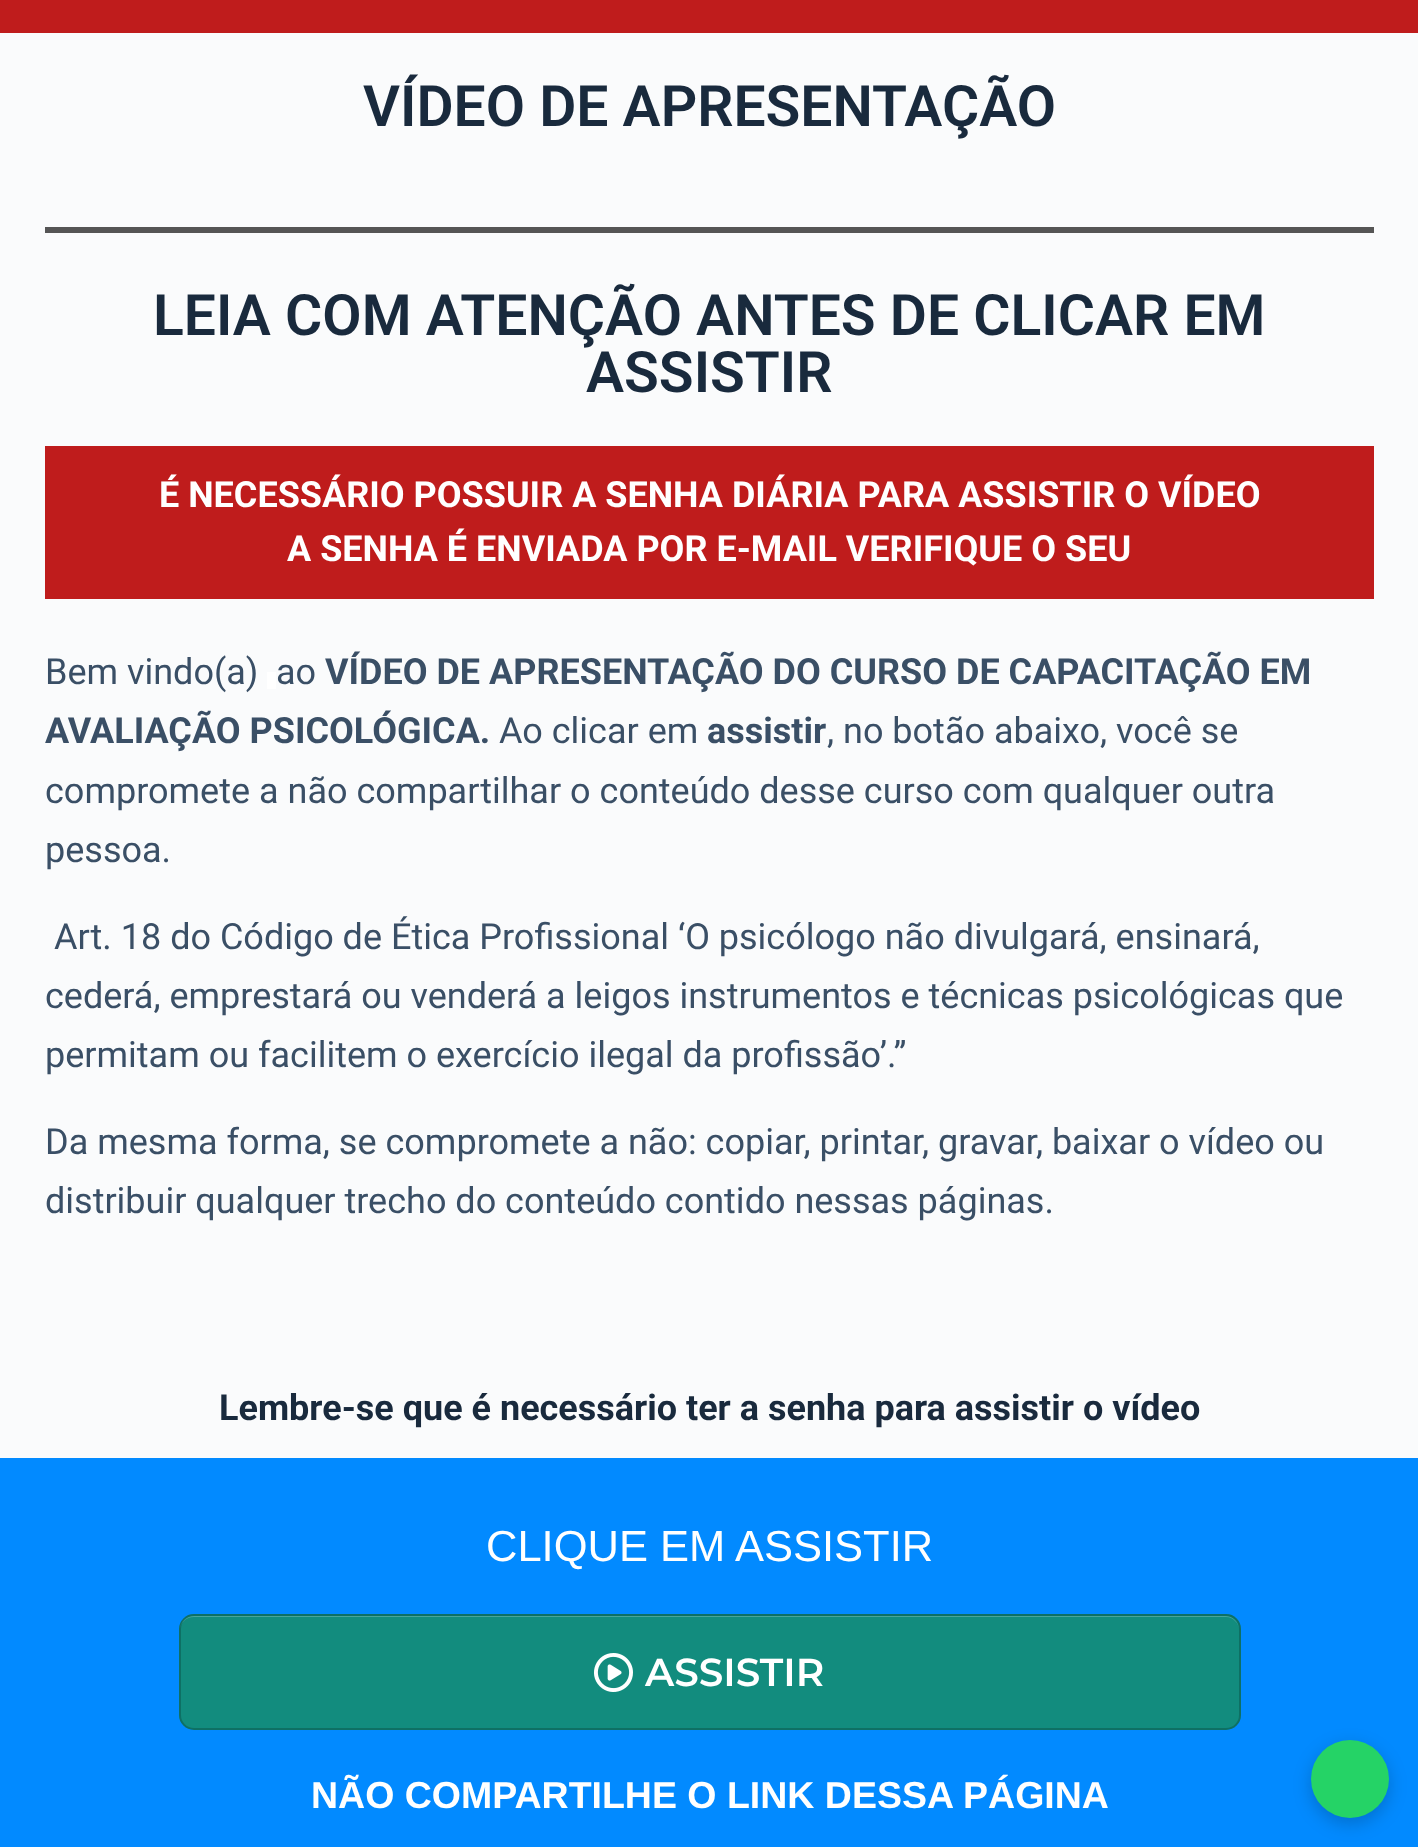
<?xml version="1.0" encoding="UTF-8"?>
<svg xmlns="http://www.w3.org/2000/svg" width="1418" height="1847">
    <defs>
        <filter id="blur1" x="-50%" y="-200%" width="200%" height="500%"><feGaussianBlur stdDeviation="9"/></filter>
    </defs>
    <rect width="100%" height="100%" fill="#FAFBFC"/>
    <rect x="0" y="0" width="1418" height="33" fill="#BF1C1C"/>
    <text x="363" y="126" font-family="Roboto" font-size="57" font-weight="600" fill="#192A3D">VÍDEO DE APRESENTAÇÃO</text>
    <rect x="45" y="227" width="1329" height="6" fill="#555555"/>
    <text x="153" y="335" font-family="Roboto" font-size="57" font-weight="600" fill="#192A3D">LEIA COM ATENÇÃO ANTES DE CLICAR EM</text>
    <text x="586" y="392" font-family="Roboto" font-size="57" font-weight="600" fill="#192A3D">ASSISTIR</text>
    <rect x="45" y="446" width="1329" height="153" fill="#BF1C1C"/>
    <text x="159" y="507" font-family="Roboto" font-size="36" font-weight="700" fill="#FFFFFF">É NECESSÁRIO POSSUIR A SENHA DIÁRIA PARA ASSISTIR O VÍDEO</text>
    <text x="287" y="561" font-family="Roboto" font-size="36" font-weight="700" fill="#FFFFFF">A SENHA É ENVIADA POR E-MAIL VERIFIQUE O SEU</text>
    <text x="45" y="684" font-family="Roboto" font-size="36" fill="#3A4F66">Bem vindo(a)</text>
    <rect x="267" y="672" width="9" height="17" fill="#FFFFFF"/>
    <text x="276" y="684" font-family="Roboto" font-size="36" fill="#3A4F66">ao</text>
    <text x="325" y="684" font-family="Roboto" font-size="36" font-weight="700" fill="#3A4F66">VÍDEO DE APRESENTAÇÃO DO CURSO DE CAPACITAÇÃO EM</text>
    <text x="45" y="743" font-family="Roboto" font-size="36" font-weight="700" fill="#3A4F66">AVALIAÇÃO PSICOLÓGICA.</text>
    <text x="499" y="743" font-family="Roboto" font-size="36" fill="#3A4F66">Ao clicar em</text>
    <text x="707" y="743" font-family="Roboto" font-size="36" font-weight="700" fill="#3A4F66">assistir</text>
    <text x="827" y="743" font-family="Roboto" font-size="36" fill="#3A4F66">, no botão abaixo, você se</text>
    <text font-family="Roboto" font-size="36" fill="#3A4F66">
        <tspan x="45" y="803">compromete a não compartilhar o conteúdo desse curso com qualquer outra</tspan>
        <tspan x="45" y="862">pessoa.</tspan>
    </text>
    <text x="54" y="949" font-family="Roboto" font-size="36" fill="#3A4F66">Art. 18 do Código de Ética Profissional ‘O psicólogo não divulgará, ensinará,</text>
    <text font-family="Roboto" font-size="36" fill="#3A4F66">
        <tspan x="45" y="1008">cederá, emprestará ou venderá a leigos instrumentos e técnicas psicológicas que</tspan>
        <tspan x="45" y="1067">permitam ou facilitem o exercício ilegal da profissão’.”</tspan>
    </text>
    <text font-family="Roboto" font-size="36" fill="#3A4F66">
        <tspan x="45" y="1154">Da mesma forma, se compromete a não: copiar, printar, gravar, baixar o vídeo ou</tspan>
        <tspan x="45" y="1213">distribuir qualquer trecho do conteúdo contido nessas páginas.</tspan>
    </text>
    <text x="219" y="1420" font-family="Roboto" font-size="36" font-weight="700" fill="#192A3D">Lembre-se que é necessário ter a senha para assistir o vídeo</text>
    <rect x="0" y="1458" width="1418" height="389" fill="#028AFF"/>
    <text x="486" y="1561" font-family="Liberation Sans" font-size="43.5" fill="#FFFFFF">CLIQUE EM ASSISTIR</text>
    <rect x="179" y="1614" width="1062" height="116" rx="15" fill="#128C7E"/>
    <path d="M 194 1617 C 186 1617 180 1623 180 1630 C 180 1622 186 1616 194 1616 H 1225 C 1233 1616 1239 1622 1239 1630 C 1239 1623 1233 1617 1226 1617 Z" fill="#46A59A"/>
    <image x="594" y="1653" width="39" height="39" href="img_01.png"/>
    <rect x="180" y="1615" width="1060" height="114" rx="14" fill="none" stroke="#000000" stroke-opacity="0.2" stroke-width="2"/>
    <text x="645" y="1686" font-family="Montserrat" font-size="39" font-weight="600" fill="#FFFFFF">ASSISTIR</text>
    <text x="311" y="1808" font-family="Liberation Sans" font-size="37.5" font-weight="700" fill="#FFFFFF">NÃO COMPARTILHE O LINK DESSA PÁGINA</text>
    <rect x="1311" y="1746" width="78" height="78" rx="39" fill="#000000" fill-opacity="0.2" filter="url(#blur1)"/>
    <circle cx="1350" cy="1779" r="39" fill="#25D366"/>
</svg>
